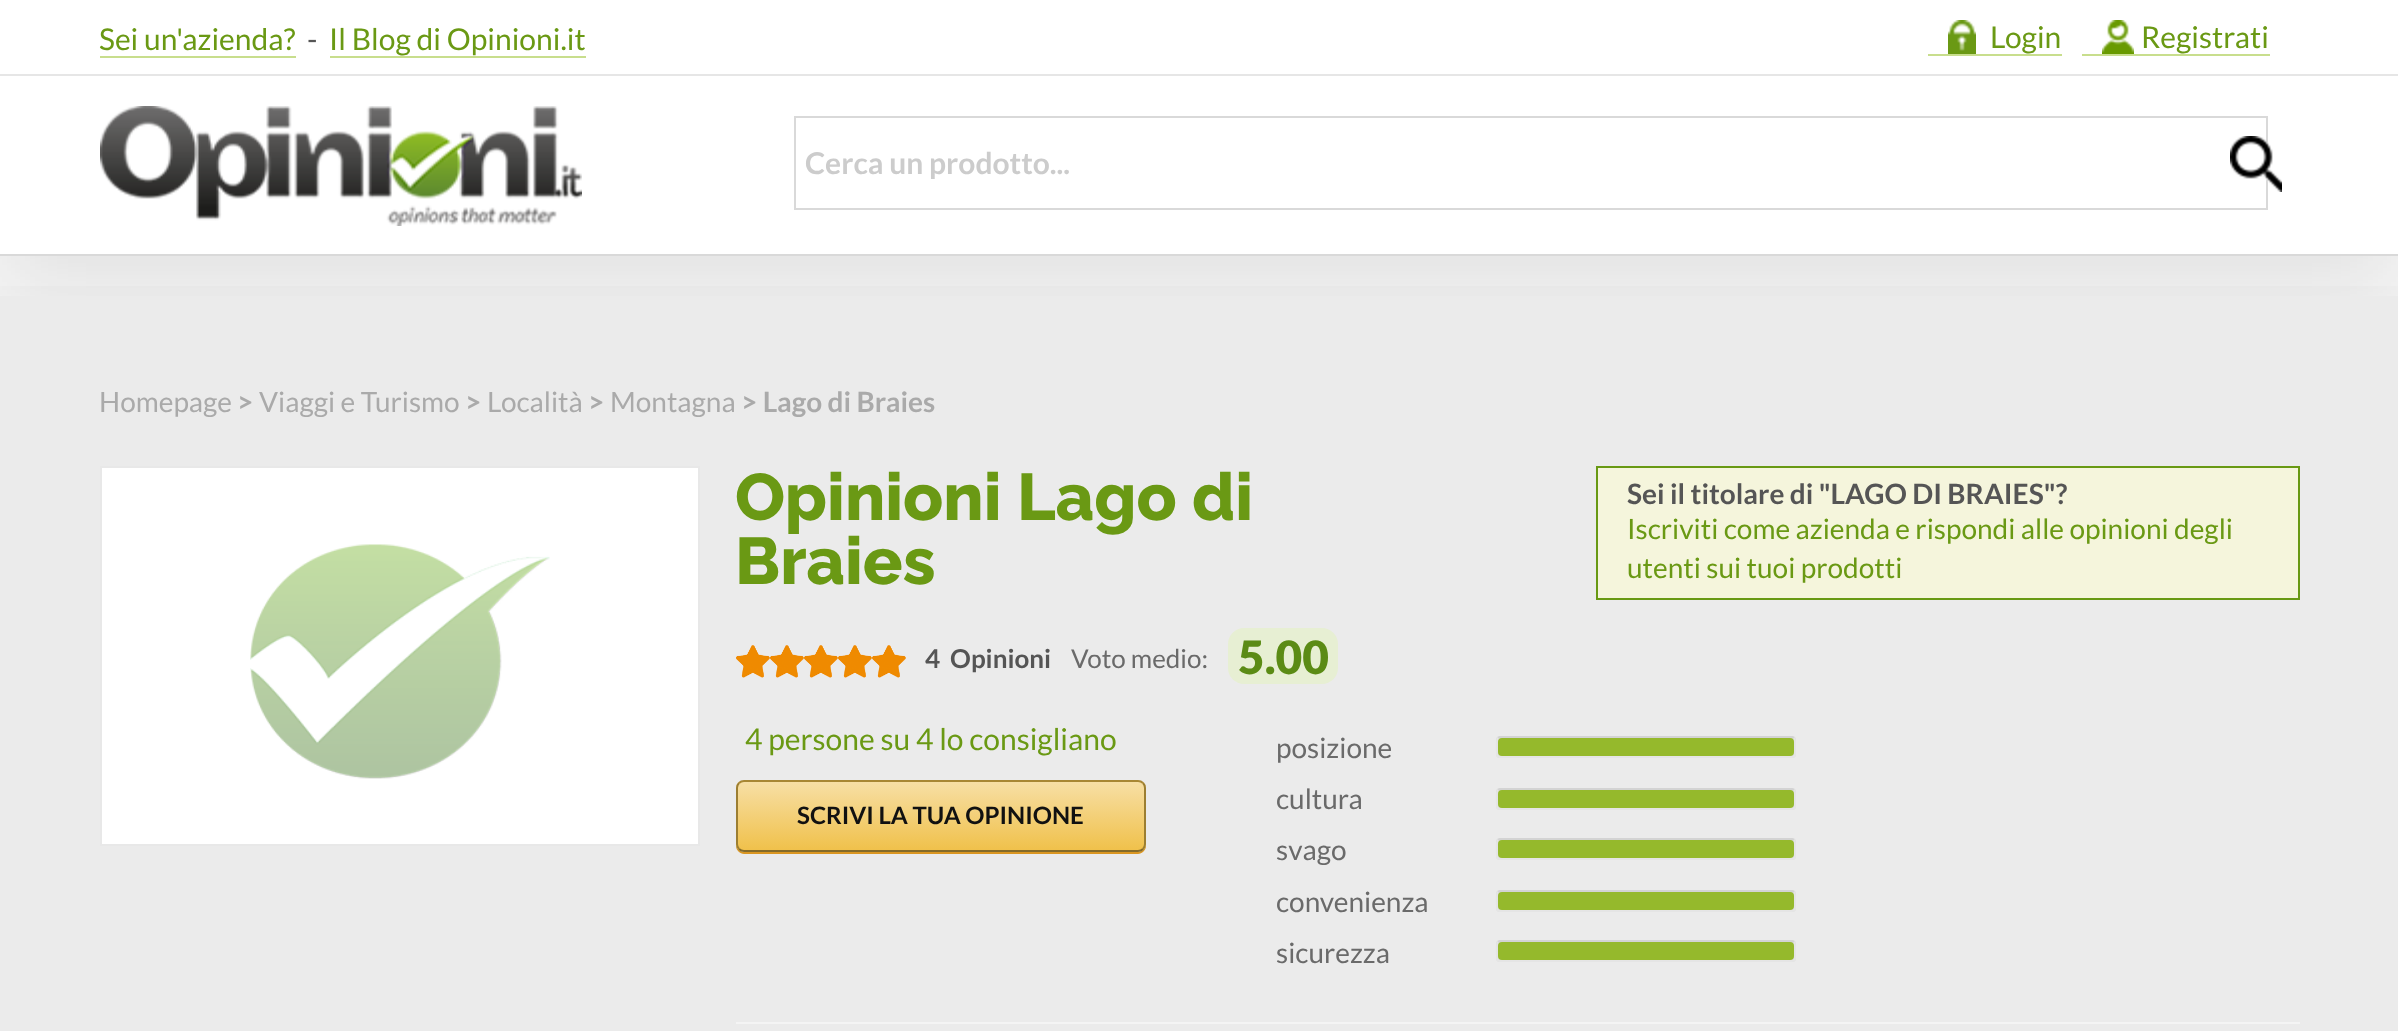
<?xml version="1.0" encoding="UTF-8"?>
<svg xmlns="http://www.w3.org/2000/svg" width="2398" height="1031">
    <defs>
        <filter id="blur1" x="-50%" y="-200%" width="200%" height="500%"><feGaussianBlur stdDeviation="45"/></filter>
        <clipPath id="clip1"><rect x="736" y="780" width="410" height="72" rx="8"/></clipPath>
        <linearGradient id="g1" gradientUnits="userSpaceOnUse" x1="941" y1="782" x2="941" y2="850"><stop offset="0" stop-color="#F7DFA5"/><stop offset="1" stop-color="#F0C14B"/></linearGradient>
        <clipPath id="clip2"><rect x="1276" y="728" width="520" height="40"/></clipPath>
        <clipPath id="clip3"><rect x="1276" y="780" width="520" height="38"/></clipPath>
        <clipPath id="clip4"><rect x="1276" y="830" width="520" height="40"/></clipPath>
        <clipPath id="clip5"><rect x="1276" y="882" width="520" height="38"/></clipPath>
        <clipPath id="clip6"><rect x="1276" y="932" width="520" height="40"/></clipPath>
    </defs>
    <rect width="100%" height="100%" fill="#F4F4F4"/>
    <rect x="0" y="30" width="2398" height="256" fill="#323232" fill-opacity="0.1" filter="url(#blur1)"/>
    <rect x="0" y="0" width="2398" height="254" fill="#FFFFFF"/>
    <rect x="0" y="74" width="2398" height="2" fill="#E6E6E6"/>
    <text x="99" y="50" font-family="Lato" font-size="30" fill="#6A9914">Sei un'azienda?</text>
    <rect x="100" y="56" width="196" height="2" fill="#C8DE8D"/>
    <text x="307" y="50" font-family="Lato" font-size="30" fill="#555555">-</text>
    <text x="329" y="50" font-family="Lato" font-size="30" fill="#6A9914">Il Blog di Opinioni.it</text>
    <rect x="330" y="56" width="256" height="2" fill="#C8DE8D"/>
    <rect x="1928" y="54" width="134" height="2" fill="#C8DE8D"/>
    <image x="1948" y="20" width="28" height="34" href="img_01.png"/>
    <text x="1990" y="48" font-family="Lato" font-size="30" fill="#6A9914">Login</text>
    <rect x="2082" y="54" width="188" height="2" fill="#C8DE8D"/>
    <image x="2102" y="20" width="32" height="34" href="img_02.png"/>
    <text x="2141" y="48" font-family="Lato" font-size="30" fill="#6A9914">Registrati</text>
    <rect x="0" y="254" width="2398" height="2" fill="#D9D9D9"/>
    <image x="100" y="106" width="482" height="120" href="img_03.png"/>
    <rect x="795" y="117" width="1472" height="92" fill="none" stroke="#D9D9D9" stroke-width="2"/>
    <text x="805" y="174" font-family="Lato" font-size="30" font-weight="700" fill="#CCCCCC">Cerca un prodotto...</text>
    <image x="2230" y="136" width="52" height="56" href="img_04.png"/>
    <rect x="0" y="296" width="2398" height="735" fill="#EBEBEB"/>
    <text x="99" y="412" font-family="Lato" font-size="28" fill="#AAAAAA">Homepage</text>
    <text x="237" y="412" font-family="Lato" font-size="28" font-weight="700" fill="#AAAAAA">&gt;</text>
    <text x="259" y="412" font-family="Lato" font-size="28" fill="#AAAAAA">Viaggi e Turismo</text>
    <text x="465" y="412" font-family="Lato" font-size="28" font-weight="700" fill="#AAAAAA">&gt;</text>
    <text x="487" y="412" font-family="Lato" font-size="28" fill="#AAAAAA">Località</text>
    <text x="588" y="412" font-family="Lato" font-size="28" font-weight="700" fill="#AAAAAA">&gt;</text>
    <text x="610" y="412" font-family="Lato" font-size="28" fill="#AAAAAA">Montagna</text>
    <text x="741" y="412" font-family="Lato" font-size="28" font-weight="700" fill="#AAAAAA">&gt; Lago di Braies</text>
    <rect x="101" y="467" width="598" height="378" fill="#FFFFFF" stroke="#E8E8E8" stroke-width="2"/>
    <image x="250" y="544" width="300" height="235" href="img_05.png"/>
    <text font-family="Raleway" font-size="66" font-weight="800" fill="#6A9914">
        <tspan x="735" y="520">Opinioni Lago di</tspan>
        <tspan x="735" y="584">Braies</tspan>
    </text>
    <rect x="1597" y="467" width="702" height="132" fill="#F5F5DC" stroke="#689913" stroke-width="2"/>
    <text x="1627" y="504" font-family="Lato" font-size="28" font-weight="700" fill="#555555">Sei il titolare di "LAGO DI BRAIES"?</text>
    <text font-family="Lato" font-size="28" fill="#6A9914">
        <tspan x="1627" y="539">Iscriviti come azienda e rispondi alle opinioni degli</tspan>
        <tspan x="1627" y="578">utenti sui tuoi prodotti</tspan>
    </text>
    <image x="736" y="645" width="34" height="33" href="img_06.png"/>
    <image x="770" y="645" width="34" height="33" href="img_07.png"/>
    <image x="804" y="645" width="34" height="33" href="img_07.png"/>
    <image x="838" y="645" width="34" height="33" href="img_07.png"/>
    <image x="872" y="645" width="34" height="33" href="img_07.png"/>
    <text x="925" y="668" font-family="Lato" font-size="26" font-weight="700" fill="#555555" xml:space="preserve">4  Opinioni</text>
    <text x="1071" y="668" font-family="Lato" font-size="26" fill="#6A6A6A">Voto medio:</text>
    <rect x="1228" y="628" width="110" height="56" rx="16" fill="#E7EFD3"/>
    <text x="1238" y="674" font-family="Lato" font-size="46" font-weight="900" fill="#5B8B15">5.00</text>
    <text x="745" y="750" font-family="Lato" font-size="30" fill="#6A9914">4 persone su 4 lo consigliano</text>
    <path d="M 736 844 V 846 C 736 850 740 854 744 854 H 1138 C 1142 854 1146 850 1146 846 V 844 C 1146 848 1142 852 1138 852 H 744 C 740 852 736 848 736 844 Z" fill="#DA9622"/>
    <g clip-path="url(#clip1)">
        <rect x="736" y="782" width="410" height="68" fill="url(#g1)"/>
    </g>
    <path d="M 739 783 C 740.5 781.5 742 781 744 781 H 1138 C 1140 781 1141.5 781.5 1143 783" fill="none" stroke="#A88734" stroke-width="2"/>
    <path d="M 1143 783 C 1144.5 784.5 1145 786 1145 788 V 844 C 1145 846 1144.5 847.5 1143 849" fill="none" stroke="#9C7E31" stroke-width="2"/>
    <path d="M 1143 849 C 1141.5 850.5 1140 851 1138 851 H 744 C 742 851 740.5 850.5 739 849" fill="none" stroke="#846A29" stroke-width="2"/>
    <path d="M 739 849 C 737.5 847.5 737 846 737 844 V 788 C 737 786 737.5 784.5 739 783" fill="none" stroke="#9C7E31" stroke-width="2"/>
    <text x="797" y="824" font-family="Lato" font-size="24" font-weight="700" fill="#111111">SCRIVI LA TUA OPINIONE</text>
    <text x="1276" y="758" font-family="Lato" font-size="28" fill="#6A6A6A">posizione</text>
    <rect x="1496" y="736" width="300" height="22" rx="4" fill="#DEDEDE"/>
    <path d="M 1498 738 L 1500 737 H 1792 L 1794 738" fill="none" stroke="#D3D3D3" stroke-width="2"/>
    <g clip-path="url(#clip2)">
        <path d="M 1794 738 C 1796 739.5 1795 751.5 1795 754.5 C 1795 756 1793.5 757 1792 757 H 1500 C 1498.5 757 1497 756 1497 754.5 C 1497 751.5 1496 739.5 1498 738" fill="none" stroke="#E5E5E5" stroke-width="2"/>
    </g>
    <rect x="1498" y="738" width="296" height="18" rx="4" fill="#95B92C"/>
    <text x="1276" y="809" font-family="Lato" font-size="28" fill="#6A6A6A">cultura</text>
    <rect x="1496" y="788" width="300" height="22" rx="4" fill="#DEDEDE"/>
    <path d="M 1498 790 L 1500 789 H 1792 L 1794 790" fill="none" stroke="#D3D3D3" stroke-width="2"/>
    <g clip-path="url(#clip3)">
        <path d="M 1794 790 C 1796 791.5 1795 803.5 1795 806.5 C 1795 808 1793.5 809 1792 809 H 1500 C 1498.5 809 1497 808 1497 806.5 C 1497 803.5 1496 791.5 1498 790" fill="none" stroke="#E5E5E5" stroke-width="2"/>
    </g>
    <rect x="1498" y="790" width="296" height="18" rx="4" fill="#95B92C"/>
    <text x="1276" y="860" font-family="Lato" font-size="28" fill="#6A6A6A">svago</text>
    <rect x="1496" y="838" width="300" height="22" rx="4" fill="#DEDEDE"/>
    <path d="M 1498 840 L 1500 839 H 1792 L 1794 840" fill="none" stroke="#D3D3D3" stroke-width="2"/>
    <g clip-path="url(#clip4)">
        <path d="M 1794 840 C 1796 841.5 1795 853.5 1795 856.5 C 1795 858 1793.5 859 1792 859 H 1500 C 1498.5 859 1497 858 1497 856.5 C 1497 853.5 1496 841.5 1498 840" fill="none" stroke="#E5E5E5" stroke-width="2"/>
    </g>
    <rect x="1498" y="840" width="296" height="18" rx="4" fill="#95B92C"/>
    <text x="1276" y="912" font-family="Lato" font-size="28" fill="#6A6A6A">convenienza</text>
    <rect x="1496" y="890" width="300" height="22" rx="4" fill="#DEDEDE"/>
    <path d="M 1498 892 L 1500 891 H 1792 L 1794 892" fill="none" stroke="#D3D3D3" stroke-width="2"/>
    <g clip-path="url(#clip5)">
        <path d="M 1794 892 C 1796 893.5 1795 905.5 1795 908.5 C 1795 910 1793.5 911 1792 911 H 1500 C 1498.5 911 1497 910 1497 908.5 C 1497 905.5 1496 893.5 1498 892" fill="none" stroke="#E5E5E5" stroke-width="2"/>
    </g>
    <rect x="1498" y="892" width="296" height="18" rx="4" fill="#95B92C"/>
    <text x="1276" y="963" font-family="Lato" font-size="28" fill="#6A6A6A">sicurezza</text>
    <rect x="1496" y="940" width="300" height="22" rx="4" fill="#DEDEDE"/>
    <path d="M 1498 942 L 1500 941 H 1792 L 1794 942" fill="none" stroke="#D3D3D3" stroke-width="2"/>
    <g clip-path="url(#clip6)">
        <path d="M 1794 942 C 1796 943.5 1795 955.5 1795 958.5 C 1795 960 1793.5 961 1792 961 H 1500 C 1498.5 961 1497 960 1497 958.5 C 1497 955.5 1496 943.5 1498 942" fill="none" stroke="#E5E5E5" stroke-width="2"/>
    </g>
    <rect x="1498" y="942" width="296" height="18" rx="4" fill="#95B92C"/>
    <rect x="736" y="1022" width="1564" height="2" fill="#F4F4F4"/>
</svg>
